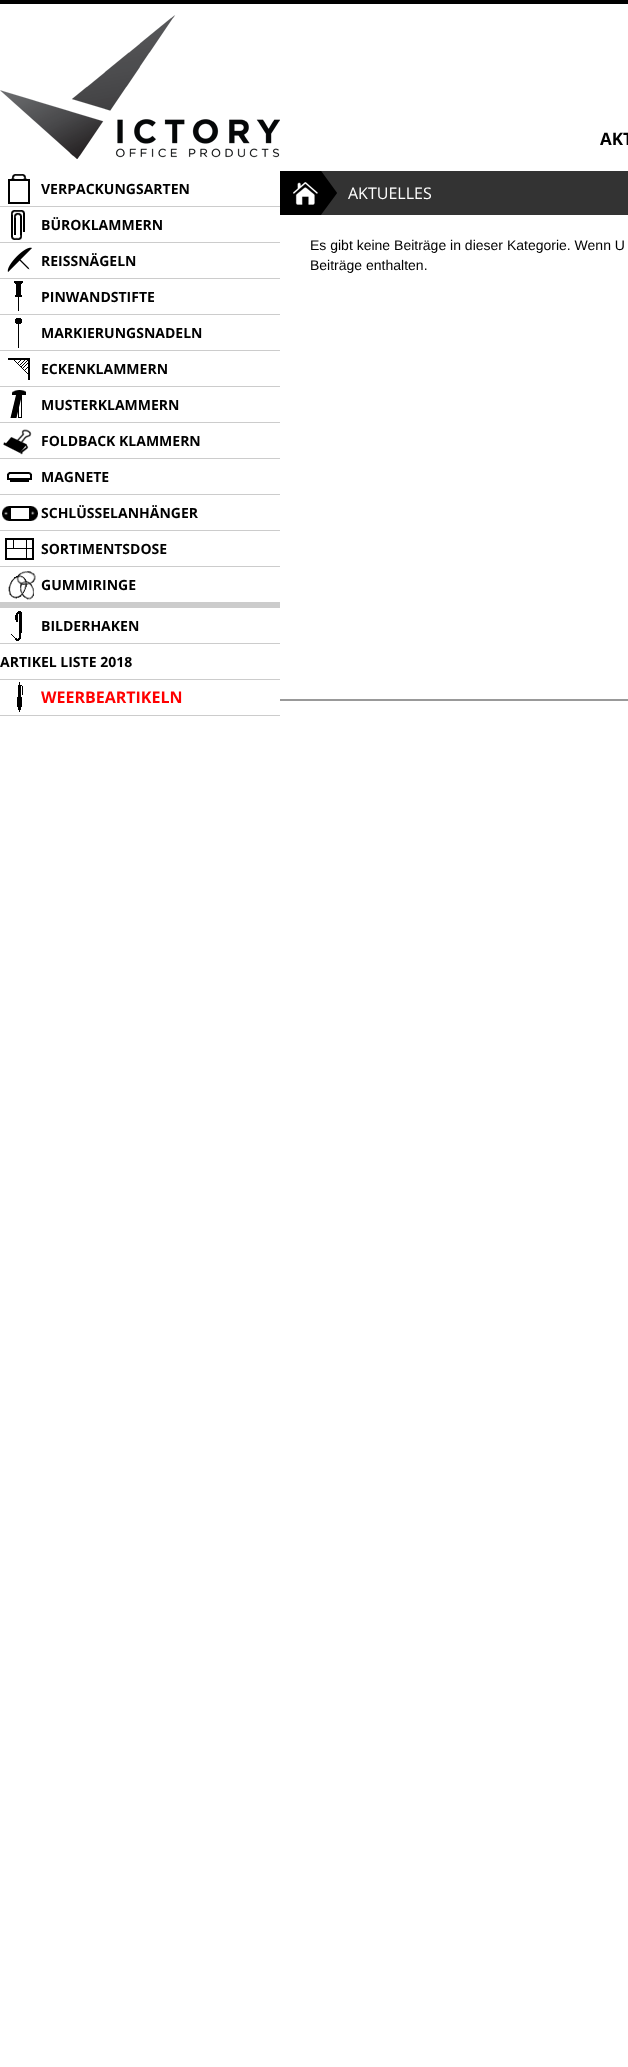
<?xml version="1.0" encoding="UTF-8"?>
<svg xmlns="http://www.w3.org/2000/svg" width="628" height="2067">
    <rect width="100%" height="100%" fill="#FFFFFF"/>
    <rect x="0" y="0" width="628" height="4" fill="#000000"/>
    <image x="0" y="15" width="280" height="144" href="img_01.png"/>
    <text x="600" y="145" font-family="Open Sans" font-size="17" font-weight="700" fill="#000000">AKT</text>
    <rect x="0" y="206" width="280" height="1" fill="#CCCCCC"/>
    <image x="8" y="174" width="22" height="30" href="img_02.png"/>
    <text x="41" y="194" font-family="Open Sans" font-size="14" font-weight="700" fill="#000000">VERPACKUNGSARTEN</text>
    <rect x="0" y="242" width="280" height="1" fill="#CCCCCC"/>
    <image x="11" y="210" width="14" height="30" href="img_03.png"/>
    <text x="41" y="230" font-family="Open Sans" font-size="14" font-weight="700" fill="#000000">BÜROKLAMMERN</text>
    <rect x="0" y="278" width="280" height="1" fill="#CCCCCC"/>
    <image x="7" y="247" width="25" height="25" href="img_04.png"/>
    <text x="41" y="266" font-family="Open Sans" font-size="14" font-weight="700" fill="#000000">REISSNÄGELN</text>
    <rect x="0" y="314" width="280" height="1" fill="#CCCCCC"/>
    <image x="14" y="281" width="9" height="30" href="img_05.png"/>
    <text x="41" y="302" font-family="Open Sans" font-size="14" font-weight="700" fill="#000000">PINWANDSTIFTE</text>
    <rect x="0" y="350" width="280" height="1" fill="#CCCCCC"/>
    <image x="15" y="318" width="7" height="30" href="img_06.png"/>
    <text x="41" y="338" font-family="Open Sans" font-size="14" font-weight="700" fill="#000000">MARKIERUNGSNADELN</text>
    <rect x="0" y="386" width="280" height="1" fill="#CCCCCC"/>
    <image x="8" y="358" width="22" height="22" href="img_07.png"/>
    <text x="41" y="374" font-family="Open Sans" font-size="14" font-weight="700" fill="#000000">ECKENKLAMMERN</text>
    <rect x="0" y="422" width="280" height="1" fill="#CCCCCC"/>
    <image x="10" y="390" width="16" height="28" href="img_08.png"/>
    <text x="41" y="410" font-family="Open Sans" font-size="14" font-weight="700" fill="#000000">MUSTERKLAMMERN</text>
    <rect x="0" y="458" width="280" height="1" fill="#CCCCCC"/>
    <image x="3" y="429" width="29" height="26" href="img_09.png"/>
    <text x="41" y="446" font-family="Open Sans" font-size="14" font-weight="700" fill="#000000">FOLDBACK KLAMMERN</text>
    <rect x="0" y="494" width="280" height="1" fill="#CCCCCC"/>
    <image x="7" y="472" width="25" height="10" href="img_10.png"/>
    <text x="41" y="482" font-family="Open Sans" font-size="14" font-weight="700" fill="#000000">MAGNETE</text>
    <rect x="0" y="530" width="280" height="1" fill="#CCCCCC"/>
    <image x="2" y="506" width="36" height="15" href="img_11.png"/>
    <text x="41" y="518" font-family="Open Sans" font-size="14" font-weight="700" fill="#000000">SCHLÜSSELANHÄNGER</text>
    <rect x="0" y="566" width="280" height="1" fill="#CCCCCC"/>
    <image x="5" y="538" width="29" height="22" href="img_12.png"/>
    <text x="41" y="554" font-family="Open Sans" font-size="14" font-weight="700" fill="#000000">SORTIMENTSDOSE</text>
    <rect x="0" y="602" width="280" height="6" fill="#CCCCCC"/>
    <image x="8" y="571" width="28" height="29" href="img_13.png"/>
    <text x="41" y="590" font-family="Open Sans" font-size="14" font-weight="700" fill="#000000">GUMMIRINGE</text>
    <rect x="0" y="643" width="280" height="1" fill="#CCCCCC"/>
    <image x="11" y="611" width="11" height="30" href="img_14.png"/>
    <text x="41" y="631" font-family="Open Sans" font-size="14" font-weight="700" fill="#000000">BILDERHAKEN</text>
    <rect x="0" y="679" width="280" height="1" fill="#CCCCCC"/>
    <text x="0" y="667" font-family="Open Sans" font-size="14" font-weight="700" fill="#000000">ARTIKEL LISTE 2018</text>
    <rect x="0" y="715" width="280" height="1" fill="#CCCCCC"/>
    <image x="17" y="682" width="6" height="30" href="img_15.png"/>
    <text x="41" y="703" font-family="Open Sans" font-size="16" font-weight="700" fill="#FF0000">WEERBEARTIKELN</text>
    <rect x="321" y="171" width="307" height="44" fill="#333333"/>
    <image x="280" y="171" width="57" height="44" href="img_16.png"/>
    <text x="348" y="199" font-family="Open Sans" font-size="16" fill="#FFFFFF">AKTUELLES</text>
    <text font-family="Liberation Sans" font-size="14" fill="#000000">
        <tspan x="310" y="250">Es gibt keine Beiträge in dieser Kategorie. Wenn U</tspan>
        <tspan x="310" y="270">Beiträge enthalten.</tspan>
    </text>
    <rect x="280" y="699" width="348" height="2" fill="#999999"/>
</svg>
